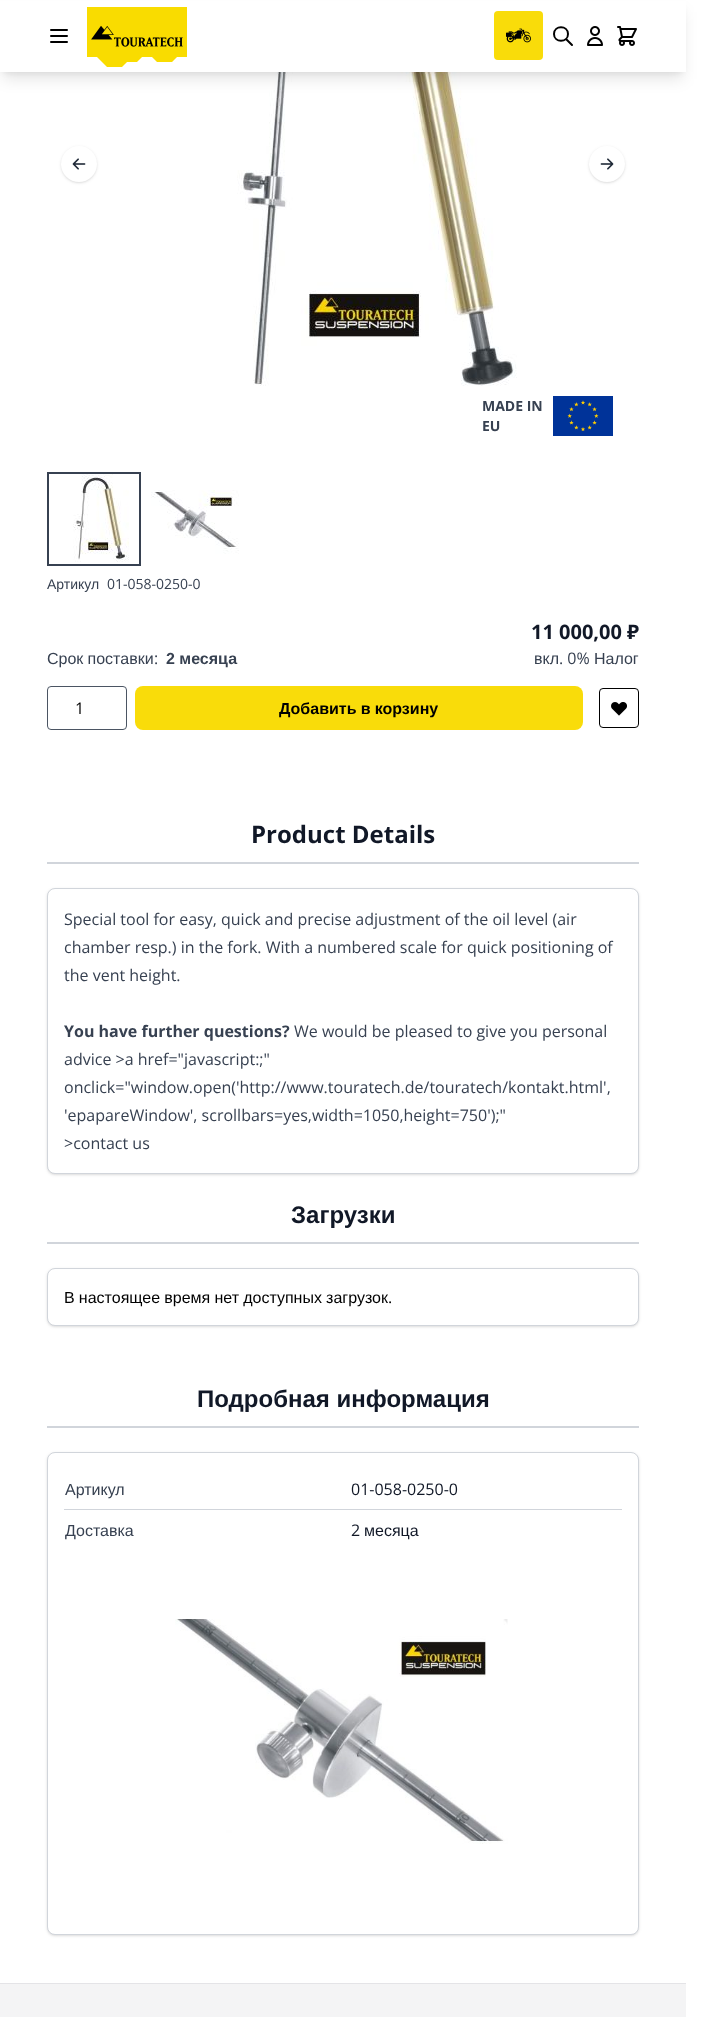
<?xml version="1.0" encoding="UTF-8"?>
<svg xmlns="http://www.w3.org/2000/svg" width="701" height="2017">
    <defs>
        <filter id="blur1" x="-50%" y="-200%" width="200%" height="500%"><feGaussianBlur stdDeviation="3"/></filter>
        <filter id="blur2" x="-50%" y="-200%" width="200%" height="500%"><feGaussianBlur stdDeviation="7.5"/></filter>
        <filter id="blur3" x="-50%" y="-200%" width="200%" height="500%"><feGaussianBlur stdDeviation="1"/></filter>
        <filter id="blur4" x="-50%" y="-200%" width="200%" height="500%"><feGaussianBlur stdDeviation="1.5"/></filter>
    </defs>
    <rect width="100%" height="100%" fill="#FFFFFF"/>
    <image x="237" y="72" width="280" height="314" href="img_05.png"/>
    <rect x="4" y="7" width="678" height="65" fill="#000000" fill-opacity="0.1" filter="url(#blur1)"/>
    <rect x="3" y="12" width="680" height="67" fill="#000000" fill-opacity="0.1" filter="url(#blur2)"/>
    <rect x="0" y="1" width="686" height="71" fill="#FFFFFF"/>
    <path d="M 51 30 H 67 M 51 36 H 67 M 51 42 H 67" fill="none" stroke="#000000" stroke-width="2" stroke-linecap="round" stroke-linejoin="round"/>
    <image x="87" y="7" width="100" height="60" href="img_01.png"/>
    <rect x="494" y="11" width="49" height="49" rx="4" fill="#F9DC0A"/>
    <image x="506" y="28" width="25" height="15" href="img_02.png"/>
    <path d="M 572 45 L 566 39 M 568 34 C 568 43 554 43 554 34 C 554 25 568 25 568 34 Z" fill="none" stroke="#000000" stroke-width="2" stroke-linecap="round" stroke-linejoin="round"/>
    <image x="587" y="26" width="16" height="20" href="img_03.png"/>
    <image x="617" y="26" width="20" height="20" href="img_04.png"/>
    <rect x="62" y="148" width="34" height="34" rx="17" fill="#000000" fill-opacity="0.1" filter="url(#blur3)"/>
    <rect x="61" y="147" width="36" height="36" rx="18" fill="#000000" fill-opacity="0.1" filter="url(#blur4)"/>
    <circle cx="79" cy="164" r="18" fill="#FFFFFF"/>
    <image x="72" y="158" width="14" height="12" href="img_06.png"/>
    <rect x="590" y="148" width="34" height="34" rx="17" fill="#000000" fill-opacity="0.1" filter="url(#blur3)"/>
    <rect x="589" y="147" width="36" height="36" rx="18" fill="#000000" fill-opacity="0.1" filter="url(#blur4)"/>
    <circle cx="607" cy="164" r="18" fill="#FFFFFF"/>
    <image x="600" y="158" width="14" height="12" href="img_07.png"/>
    <text font-family="Open Sans" font-size="14" font-weight="700" fill="#374151">
        <tspan x="482" y="411">MADE IN</tspan>
        <tspan x="482" y="431">EU</tspan>
    </text>
    <image x="553" y="396" width="60" height="40" href="img_08.png"/>
    <rect x="48" y="473" width="92" height="92" fill="none" stroke="#374151" stroke-width="2"/>
    <image x="73" y="474" width="56" height="88" href="img_09.png"/>
    <image x="151" y="490" width="88" height="64" href="img_10.png"/>
    <text x="47" y="589" font-family="Liberation Sans" font-size="14" fill="#374151">Артикул</text>
    <text x="107" y="589" font-family="Open Sans" font-size="14" fill="#374151">01-058-0250-0</text>
    <text x="47" y="664" word-spacing="-0.25" font-family="Liberation Sans" font-size="16" fill="#374151">Срок поставки</text>
    <text x="154" y="664" font-family="Open Sans" font-size="16" fill="#374151">:</text>
    <text x="166" y="664" font-family="Liberation Sans" font-size="16" font-weight="700" fill="#374151">2 месяца</text>
    <text x="531" y="639" font-family="Open Sans" font-size="20" font-weight="700" fill="#111827">11 000,00</text>
    <text x="627" y="639" font-family="Noto Sans" font-size="20" font-weight="700" fill="#111827">₽</text>
    <text x="534" y="664" font-family="Liberation Sans" font-size="16" fill="#374151">вкл</text>
    <text x="559" y="664" font-family="Open Sans" font-size="16" fill="#374151">. 0%</text>
    <text x="594" y="664" font-family="Liberation Sans" font-size="16" fill="#374151">Налог</text>
    <rect x="47.5" y="686.5" width="79" height="43" rx="3.5" fill="none" stroke="#4B5563"/>
    <text x="75" y="714" font-family="Open Sans" font-size="16" fill="#000000">1</text>
    <rect x="135" y="686" width="448" height="44" rx="8" fill="#F9DC0A"/>
    <text x="279" y="714" word-spacing="-0.25" font-family="Liberation Sans" font-size="16" font-weight="700" fill="#000000">Добавить в корзину</text>
    <rect x="599.5" y="688.5" width="39" height="39" rx="3.5" fill="none" stroke="#000000"/>
    <image x="611" y="702" width="16" height="14" href="img_11.png"/>
    <rect x="47" y="862" width="592" height="2" fill="#D1D5DB"/>
    <text x="251" y="843" font-family="Open Sans" font-size="24" font-weight="700" fill="#111827">Product Details</text>
    <rect x="48" y="890" width="590" height="284" rx="7" fill="#000000" fill-opacity="0.1" filter="url(#blur3)"/>
    <rect x="47" y="889" width="592" height="286" rx="8" fill="#000000" fill-opacity="0.1" filter="url(#blur4)"/>
    <rect x="47.5" y="888.5" width="591" height="285" rx="7.5" fill="#FFFFFF" stroke="#D1D5DB"/>
    <text font-family="Open Sans" font-size="16" fill="#374151">
        <tspan x="64" y="925">Special tool for easy, quick and precise adjustment of the oil level (air</tspan>
        <tspan x="64" y="953">chamber resp.) in the fork. With a numbered scale for quick positioning of</tspan>
        <tspan x="64" y="981">the vent height.</tspan>
    </text>
    <text x="64" y="1037" font-family="Open Sans" font-size="16" font-weight="700" fill="#374151">You have further questions?</text>
    <text x="294" y="1037" font-family="Open Sans" font-size="16" fill="#374151">We would be pleased to give you personal</text>
    <text font-family="Open Sans" font-size="16" fill="#374151">
        <tspan x="64" y="1065">advice &gt;a href="javascript:;"</tspan>
        <tspan x="64" y="1093">onclick="window.open('http://www.touratech.de/touratech/kontakt.html',</tspan>
        <tspan x="64" y="1121">'epapareWindow', scrollbars=yes,width=1050,height=750');"</tspan>
        <tspan x="64" y="1149">&gt;contact us</tspan>
    </text>
    <rect x="47" y="1242" width="592" height="2" fill="#D1D5DB"/>
    <text x="291" y="1223" font-family="Liberation Sans" font-size="24" font-weight="700" fill="#111827">Загрузки</text>
    <rect x="48" y="1270" width="590" height="56" rx="7" fill="#000000" fill-opacity="0.1" filter="url(#blur3)"/>
    <rect x="47" y="1269" width="592" height="58" rx="8" fill="#000000" fill-opacity="0.1" filter="url(#blur4)"/>
    <rect x="47.5" y="1268.5" width="591" height="57" rx="7.5" fill="#FFFFFF" stroke="#D1D5DB"/>
    <text x="64" y="1303" word-spacing="-0.25" font-family="Liberation Sans" font-size="16" fill="#000000">В настоящее время нет доступных загрузок</text>
    <text x="388" y="1303" font-family="Open Sans" font-size="16" fill="#000000">.</text>
    <rect x="47" y="1426" width="592" height="2" fill="#D1D5DB"/>
    <text x="197" y="1407" font-family="Liberation Sans" font-size="24" font-weight="700" fill="#111827">Подробная информация</text>
    <rect x="48" y="1454" width="590" height="481" rx="7" fill="#000000" fill-opacity="0.1" filter="url(#blur3)"/>
    <rect x="47" y="1453" width="592" height="483" rx="8" fill="#000000" fill-opacity="0.1" filter="url(#blur4)"/>
    <rect x="47.5" y="1452.5" width="591" height="482" rx="7.5" fill="#FFFFFF" stroke="#D1D5DB"/>
    <rect x="64" y="1509" width="558" height="1" fill="#D1D5DB"/>
    <text x="65" y="1495" font-family="Liberation Sans" font-size="16" fill="#374151">Артикул</text>
    <text x="351" y="1495" font-family="Open Sans" font-size="16" fill="#111827">01-058-0250-0</text>
    <text x="65" y="1536" font-family="Liberation Sans" font-size="16" fill="#374151">Доставка</text>
    <text x="351" y="1536" font-family="Open Sans" font-size="16" fill="#111827">2</text>
    <text x="364" y="1536" font-family="Liberation Sans" font-size="16" fill="#111827">месяца</text>
    <image x="175" y="1619" width="333" height="225" href="img_12.png"/>
    <rect x="0" y="1984" width="686" height="33" fill="#F4F4F5"/>
    <rect x="0" y="1983" width="686" height="1" fill="#E4E4E7"/>
</svg>
